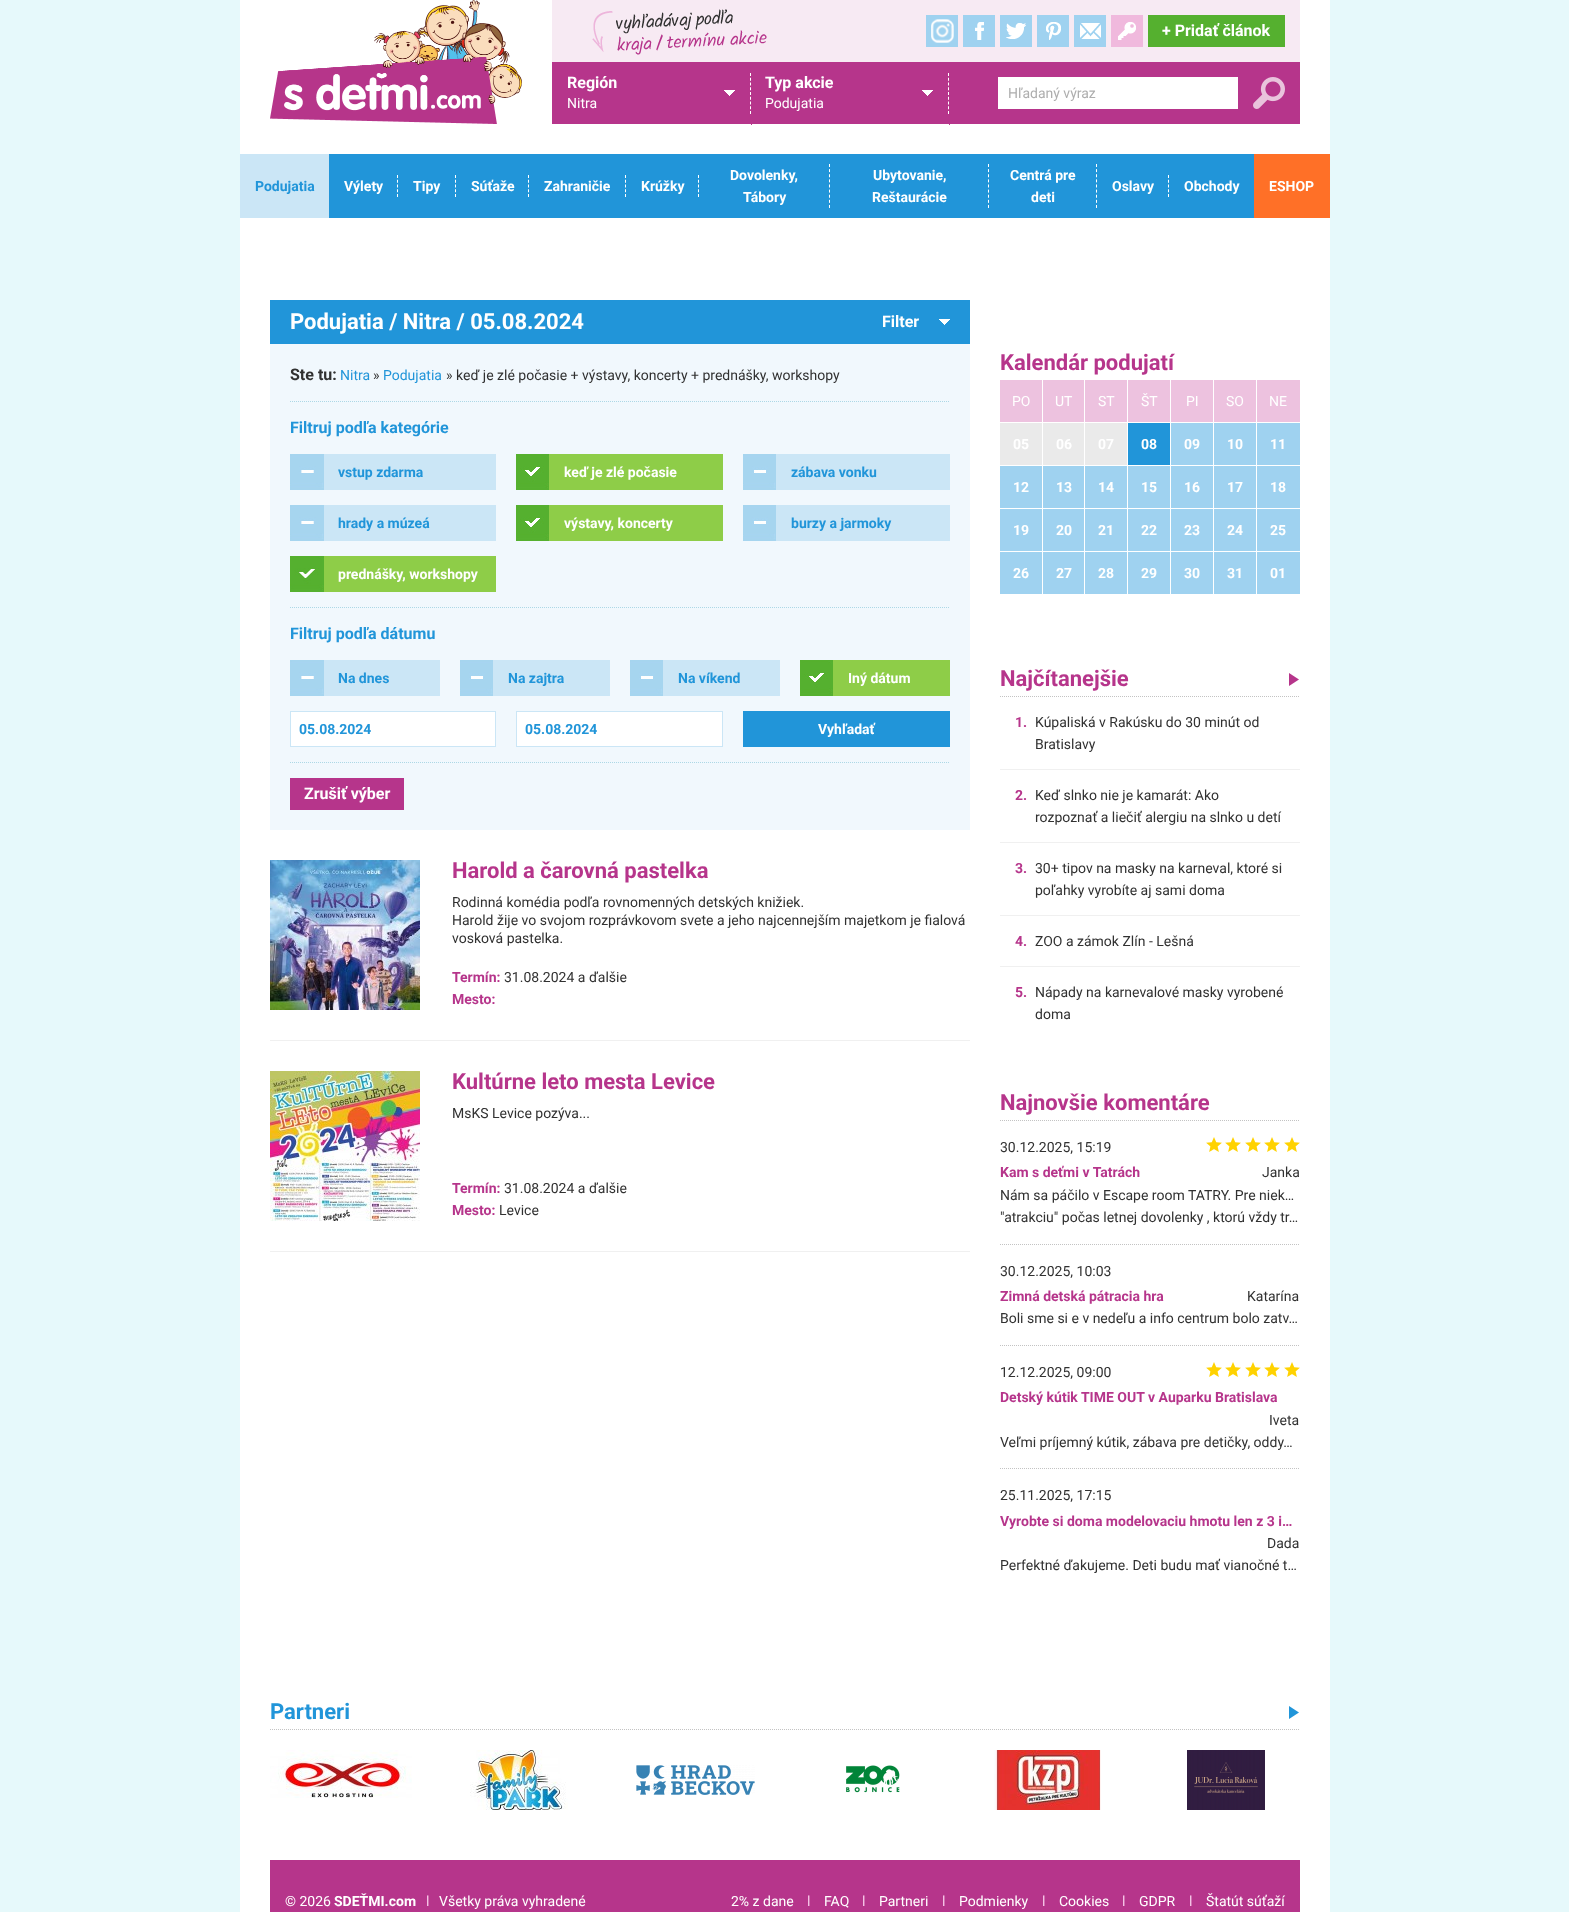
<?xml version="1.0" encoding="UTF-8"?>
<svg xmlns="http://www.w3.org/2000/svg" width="1569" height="1912">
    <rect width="100%" height="100%" fill="#E6F9FB"/>
    <rect x="240" y="0" width="1090" height="154" fill="#FFFFFF"/>
    <image x="270" y="0" width="252" height="124" href="img_01.png"/>
    <rect x="552" y="62" width="748" height="62" fill="#B6358B"/>
    <rect x="751" y="124" width="1" height="1" fill="#B6358B"/>
    <path d="M 750.5 73 V 114" fill="none" stroke="#FFFFFF" stroke-dasharray="3 1.75"/>
    <image x="724" y="90" width="11" height="6" href="img_02.png"/>
    <text x="567" y="88" font-family="Roboto" font-size="16" font-weight="700" fill="#FFFFFF">Región</text>
    <text x="567" y="108" font-family="Roboto" font-size="14" fill="#FFFFFF">Nitra</text>
    <rect x="949" y="124" width="1" height="1" fill="#B6358B"/>
    <path d="M 948.5 73 V 114" fill="none" stroke="#FFFFFF" stroke-dasharray="3 1.75"/>
    <image x="922" y="90" width="11" height="6" href="img_02.png"/>
    <text x="765" y="88" font-family="Roboto" font-size="16" font-weight="700" fill="#FFFFFF">Typ akcie</text>
    <text x="765" y="108" font-family="Roboto" font-size="14" fill="#FFFFFF">Podujatia</text>
    <rect x="552" y="0" width="748" height="62" fill="#F7EAF3"/>
    <image x="592" y="9" width="175" height="46" href="img_03.png"/>
    <image x="926" y="15" width="32" height="32" href="img_04.png"/>
    <image x="963" y="15" width="32" height="32" href="img_05.png"/>
    <image x="1000" y="15" width="32" height="32" href="img_06.png"/>
    <image x="1037" y="15" width="32" height="32" href="img_07.png"/>
    <image x="1074" y="15" width="32" height="32" href="img_08.png"/>
    <image x="1111" y="15" width="32" height="32" href="img_09.png"/>
    <rect x="1148" y="15" width="137" height="32" fill="#55B02F"/>
    <text x="1162" y="36" font-family="Roboto" font-size="16" font-weight="700" fill="#FFFFFF">+ Pridať článok</text>
    <rect x="998" y="77" width="240" height="32" fill="#FFFFFF"/>
    <text x="1008" y="98" font-family="Roboto" font-size="14" fill="#AEAEAE">Hľadaný výraz</text>
    <image x="1253" y="77" width="32" height="32" href="img_10.png"/>
    <rect x="240" y="154" width="89" height="64" fill="#CBE6F6"/>
    <text x="255" y="191" font-family="Roboto" font-size="14" font-weight="700" fill="#2195D9">Podujatia</text>
    <rect x="329" y="154" width="925" height="64" fill="#2195D9"/>
    <text x="344" y="191" font-family="Roboto" font-size="14" font-weight="700" fill="#FFFFFF">Výlety</text>
    <path d="M 397.5 175 V 197" fill="none" stroke="#FFFFFF" stroke-dasharray="3 1.75"/>
    <text x="413" y="191" font-family="Roboto" font-size="14" font-weight="700" fill="#FFFFFF">Tipy</text>
    <path d="M 455.5 175 V 197" fill="none" stroke="#FFFFFF" stroke-dasharray="3 1.75"/>
    <text x="471" y="191" font-family="Roboto" font-size="14" font-weight="700" fill="#FFFFFF">Súťaže</text>
    <path d="M 528.5 175 V 197" fill="none" stroke="#FFFFFF" stroke-dasharray="3 1.75"/>
    <text x="544" y="191" font-family="Roboto" font-size="14" font-weight="700" fill="#FFFFFF">Zahraničie</text>
    <path d="M 625.5 175 V 197" fill="none" stroke="#FFFFFF" stroke-dasharray="3 1.75"/>
    <text x="641" y="191" font-family="Roboto" font-size="14" font-weight="700" fill="#FFFFFF">Krúžky</text>
    <path d="M 698.5 175 V 197" fill="none" stroke="#FFFFFF" stroke-dasharray="3 1.75"/>
    <text x="730" y="180" font-family="Roboto" font-size="14" font-weight="700" fill="#FFFFFF">Dovolenky,</text>
    <path d="M 829.5 164 V 208" fill="none" stroke="#FFFFFF" stroke-dasharray="3 2.12"/>
    <text x="743" y="202" font-family="Roboto" font-size="14" font-weight="700" fill="#FFFFFF">Tábory</text>
    <text x="873" y="180" font-family="Roboto" font-size="14" font-weight="700" fill="#FFFFFF">Ubytovanie,</text>
    <path d="M 988.5 164 V 208" fill="none" stroke="#FFFFFF" stroke-dasharray="3 2.12"/>
    <text x="872" y="202" font-family="Roboto" font-size="14" font-weight="700" fill="#FFFFFF">Reštaurácie</text>
    <text x="1010" y="180" font-family="Roboto" font-size="14" font-weight="700" fill="#FFFFFF">Centrá pre</text>
    <path d="M 1096.5 164 V 208" fill="none" stroke="#FFFFFF" stroke-dasharray="3 2.12"/>
    <text x="1031" y="202" font-family="Roboto" font-size="14" font-weight="700" fill="#FFFFFF">deti</text>
    <text x="1112" y="191" font-family="Roboto" font-size="14" font-weight="700" fill="#FFFFFF">Oslavy</text>
    <path d="M 1168.5 175 V 197" fill="none" stroke="#FFFFFF" stroke-dasharray="3 1.75"/>
    <text x="1184" y="191" font-family="Roboto" font-size="14" font-weight="700" fill="#FFFFFF">Obchody</text>
    <rect x="1254" y="154" width="76" height="64" fill="#FF7027"/>
    <text x="1269" y="191" font-family="Roboto" font-size="14" font-weight="700" fill="#FFFFFF">ESHOP</text>
    <rect x="240" y="218" width="1090" height="1694" fill="#FFFFFF"/>
    <rect x="270" y="344" width="700" height="486" fill="#F1F8FD"/>
    <rect x="270" y="300" width="700" height="44" fill="#2195D9"/>
    <text x="290" y="329" font-family="Roboto" font-size="22" font-weight="700" fill="#FFFFFF">Podujatia / Nitra / 05.08.2024</text>
    <text x="882" y="327" font-family="Roboto" font-size="16" font-weight="700" fill="#FFFFFF">Filter</text>
    <image x="939" y="319" width="11" height="6" href="img_11.png"/>
    <text x="290" y="380" font-family="Roboto" font-size="16" font-weight="700" fill="#313131">Ste tu:</text>
    <text x="340" y="380" font-family="Roboto" font-size="14" fill="#2195D9">Nitra</text>
    <text x="373" y="380" font-family="Roboto" font-size="14" fill="#313131">»</text>
    <text x="383" y="380" font-family="Roboto" font-size="14" fill="#2195D9">Podujatia</text>
    <text x="446" y="380" font-family="Roboto" font-size="14" fill="#313131">» keď je zlé počasie + výstavy, koncerty + prednášky, workshopy</text>
    <path d="M 290 401.5 H 950" fill="none" stroke="#ADD8E6" stroke-dasharray="1 1"/>
    <text x="290" y="433" font-family="Roboto" font-size="16" font-weight="700" fill="#2195D9">Filtruj podľa kategórie</text>
    <rect x="324" y="454" width="172" height="36" fill="#CBE6F6"/>
    <image x="290" y="454" width="34" height="36" href="img_12.png"/>
    <text x="338" y="477" font-family="Roboto" font-size="14" font-weight="700" fill="#2195D9">vstup zdarma</text>
    <rect x="549" y="454" width="174" height="36" fill="#8ECD48"/>
    <image x="516" y="454" width="33" height="36" href="img_13.png"/>
    <text x="564" y="477" font-family="Roboto" font-size="14" font-weight="700" fill="#FFFFFF">keď je zlé počasie</text>
    <rect x="776" y="454" width="174" height="36" fill="#CBE6F6"/>
    <image x="743" y="454" width="33" height="36" href="img_14.png"/>
    <text x="791" y="477" font-family="Roboto" font-size="14" font-weight="700" fill="#2195D9">zábava vonku</text>
    <rect x="324" y="505" width="172" height="36" fill="#CBE6F6"/>
    <image x="290" y="505" width="34" height="36" href="img_12.png"/>
    <text x="338" y="528" font-family="Roboto" font-size="14" font-weight="700" fill="#2195D9">hrady a múzeá</text>
    <rect x="549" y="505" width="174" height="36" fill="#8ECD48"/>
    <image x="516" y="505" width="33" height="36" href="img_13.png"/>
    <text x="564" y="528" font-family="Roboto" font-size="14" font-weight="700" fill="#FFFFFF">výstavy, koncerty</text>
    <rect x="776" y="505" width="174" height="36" fill="#CBE6F6"/>
    <image x="743" y="505" width="33" height="36" href="img_14.png"/>
    <text x="791" y="528" font-family="Roboto" font-size="14" font-weight="700" fill="#2195D9">burzy a jarmoky</text>
    <rect x="324" y="556" width="172" height="36" fill="#8ECD48"/>
    <image x="290" y="556" width="34" height="36" href="img_15.png"/>
    <text x="338" y="579" font-family="Roboto" font-size="14" font-weight="700" fill="#FFFFFF">prednášky, workshopy</text>
    <path d="M 290 607.5 H 950" fill="none" stroke="#ADD8E6" stroke-dasharray="1 1"/>
    <text x="290" y="639" font-family="Roboto" font-size="16" font-weight="700" fill="#2195D9">Filtruj podľa dátumu</text>
    <rect x="324" y="660" width="116" height="36" fill="#CBE6F6"/>
    <image x="290" y="660" width="34" height="36" href="img_12.png"/>
    <text x="338" y="683" font-family="Roboto" font-size="14" font-weight="700" fill="#2195D9">Na dnes</text>
    <rect x="493" y="660" width="117" height="36" fill="#CBE6F6"/>
    <image x="460" y="660" width="33" height="36" href="img_14.png"/>
    <text x="508" y="683" font-family="Roboto" font-size="14" font-weight="700" fill="#2195D9">Na zajtra</text>
    <rect x="663" y="660" width="117" height="36" fill="#CBE6F6"/>
    <image x="630" y="660" width="33" height="36" href="img_14.png"/>
    <text x="678" y="683" font-family="Roboto" font-size="14" font-weight="700" fill="#2195D9">Na víkend</text>
    <rect x="833" y="660" width="117" height="36" fill="#8ECD48"/>
    <image x="800" y="660" width="33" height="36" href="img_13.png"/>
    <text x="848" y="683" font-family="Roboto" font-size="14" font-weight="700" fill="#FFFFFF">Iný dátum</text>
    <rect x="290.5" y="711.5" width="205" height="35" fill="#FFFFFF" stroke="#CBE6F6"/>
    <text x="299" y="734" font-family="Roboto" font-size="14" font-weight="700" fill="#2195D9">05.08.2024</text>
    <rect x="516.5" y="711.5" width="206" height="35" fill="#FFFFFF" stroke="#CBE6F6"/>
    <text x="525" y="734" font-family="Roboto" font-size="14" font-weight="700" fill="#2195D9">05.08.2024</text>
    <rect x="743" y="711" width="207" height="36" fill="#2195D9"/>
    <text x="818" y="734" font-family="Roboto" font-size="14" font-weight="700" fill="#FFFFFF">Vyhľadať</text>
    <path d="M 290 762.5 H 950" fill="none" stroke="#ADD8E6" stroke-dasharray="1 1"/>
    <rect x="290" y="778" width="114" height="32" fill="#B6358B"/>
    <text x="304" y="799" font-family="Roboto" font-size="16" font-weight="700" fill="#FFFFFF">Zrušiť výber</text>
    <image x="270" y="860" width="150" height="150" href="img_16.png"/>
    <text x="452" y="878" font-family="Roboto" font-size="22" font-weight="700" fill="#B6358B">Harold a čarovná pastelka</text>
    <text font-family="Roboto" font-size="14" fill="#313131">
        <tspan x="452" y="907">Rodinná komédia podľa rovnomenných detských knižiek.</tspan>
        <tspan x="452" y="925">Harold žije vo svojom rozprávkovom svete a jeho najcennejším majetkom je fialová</tspan>
        <tspan x="452" y="943">vosková pastelka.</tspan>
    </text>
    <text x="452" y="982" font-family="Roboto" font-size="14" font-weight="700" fill="#B6358B">Termín:</text>
    <text x="504" y="982" font-family="Roboto" font-size="14" fill="#313131">31.08.2024 a ďalšie</text>
    <text x="452" y="1004" font-family="Roboto" font-size="14" font-weight="700" fill="#B6358B">Mesto:</text>
    <rect x="270" y="1040" width="700" height="1" fill="#F0F0F0"/>
    <image x="270" y="1071" width="150" height="150" href="img_17.png"/>
    <text x="452" y="1089" font-family="Roboto" font-size="22" font-weight="700" fill="#B6358B">Kultúrne leto mesta Levice</text>
    <text x="452" y="1118" font-family="Roboto" font-size="14" fill="#313131">MsKS Levice pozýva...</text>
    <text x="452" y="1193" font-family="Roboto" font-size="14" font-weight="700" fill="#B6358B">Termín:</text>
    <text x="504" y="1193" font-family="Roboto" font-size="14" fill="#313131">31.08.2024 a ďalšie</text>
    <text x="452" y="1215" font-family="Roboto" font-size="14" font-weight="700" fill="#B6358B">Mesto:</text>
    <text x="499" y="1215" font-family="Roboto" font-size="14" fill="#313131">Levice</text>
    <rect x="270" y="1251" width="700" height="1" fill="#F0F0F0"/>
    <text x="1000" y="370" font-family="Roboto" font-size="22" font-weight="700" fill="#B6358B">Kalendár podujatí</text>
    <rect x="1000" y="380" width="42" height="42" fill="#EDC2DF"/>
    <text x="1012" y="406" font-family="Roboto" font-size="14" fill="#FFFFFF">PO</text>
    <rect x="1043" y="380" width="41" height="42" fill="#EDC2DF"/>
    <text x="1055" y="406" font-family="Roboto" font-size="14" fill="#FFFFFF">UT</text>
    <rect x="1085" y="380" width="42" height="42" fill="#EDC2DF"/>
    <text x="1098" y="406" font-family="Roboto" font-size="14" fill="#FFFFFF">ST</text>
    <rect x="1128" y="380" width="42" height="42" fill="#EDC2DF"/>
    <text x="1141" y="406" font-family="Roboto" font-size="14" fill="#FFFFFF">ŠT</text>
    <rect x="1171" y="380" width="42" height="42" fill="#EDC2DF"/>
    <text x="1186" y="406" font-family="Roboto" font-size="14" fill="#FFFFFF">PI</text>
    <rect x="1214" y="380" width="42" height="42" fill="#EDC2DF"/>
    <text x="1226" y="406" font-family="Roboto" font-size="14" fill="#FFFFFF">SO</text>
    <rect x="1257" y="380" width="43" height="42" fill="#EDC2DF"/>
    <text x="1269" y="406" font-family="Roboto" font-size="14" fill="#FFFFFF">NE</text>
    <rect x="1000" y="423" width="42" height="42" fill="#EAEAEA"/>
    <text x="1013" y="449" font-family="Roboto" font-size="14" font-weight="700" fill="#FFFFFF">05</text>
    <rect x="1043" y="423" width="41" height="42" fill="#EAEAEA"/>
    <text x="1056" y="449" font-family="Roboto" font-size="14" font-weight="700" fill="#FFFFFF">06</text>
    <rect x="1085" y="423" width="42" height="42" fill="#EAEAEA"/>
    <text x="1098" y="449" font-family="Roboto" font-size="14" font-weight="700" fill="#FFFFFF">07</text>
    <rect x="1128" y="423" width="42" height="42" fill="#2195D9"/>
    <text x="1141" y="449" font-family="Roboto" font-size="14" font-weight="700" fill="#FFFFFF">08</text>
    <rect x="1171" y="423" width="42" height="42" fill="#9FD2F0"/>
    <text x="1184" y="449" font-family="Roboto" font-size="14" font-weight="700" fill="#FFFFFF">09</text>
    <rect x="1214" y="423" width="42" height="42" fill="#9FD2F0"/>
    <text x="1227" y="449" font-family="Roboto" font-size="14" font-weight="700" fill="#FFFFFF">10</text>
    <rect x="1257" y="423" width="43" height="42" fill="#9FD2F0"/>
    <text x="1270" y="449" font-family="Roboto" font-size="14" font-weight="700" fill="#FFFFFF">11</text>
    <rect x="1000" y="466" width="42" height="42" fill="#9FD2F0"/>
    <text x="1013" y="492" font-family="Roboto" font-size="14" font-weight="700" fill="#FFFFFF">12</text>
    <rect x="1043" y="466" width="41" height="42" fill="#9FD2F0"/>
    <text x="1056" y="492" font-family="Roboto" font-size="14" font-weight="700" fill="#FFFFFF">13</text>
    <rect x="1085" y="466" width="42" height="42" fill="#9FD2F0"/>
    <text x="1098" y="492" font-family="Roboto" font-size="14" font-weight="700" fill="#FFFFFF">14</text>
    <rect x="1128" y="466" width="42" height="42" fill="#9FD2F0"/>
    <text x="1141" y="492" font-family="Roboto" font-size="14" font-weight="700" fill="#FFFFFF">15</text>
    <rect x="1171" y="466" width="42" height="42" fill="#9FD2F0"/>
    <text x="1184" y="492" font-family="Roboto" font-size="14" font-weight="700" fill="#FFFFFF">16</text>
    <rect x="1214" y="466" width="42" height="42" fill="#9FD2F0"/>
    <text x="1227" y="492" font-family="Roboto" font-size="14" font-weight="700" fill="#FFFFFF">17</text>
    <rect x="1257" y="466" width="43" height="42" fill="#9FD2F0"/>
    <text x="1270" y="492" font-family="Roboto" font-size="14" font-weight="700" fill="#FFFFFF">18</text>
    <rect x="1000" y="509" width="42" height="42" fill="#9FD2F0"/>
    <text x="1013" y="535" font-family="Roboto" font-size="14" font-weight="700" fill="#FFFFFF">19</text>
    <rect x="1043" y="509" width="41" height="42" fill="#9FD2F0"/>
    <text x="1056" y="535" font-family="Roboto" font-size="14" font-weight="700" fill="#FFFFFF">20</text>
    <rect x="1085" y="509" width="42" height="42" fill="#9FD2F0"/>
    <text x="1098" y="535" font-family="Roboto" font-size="14" font-weight="700" fill="#FFFFFF">21</text>
    <rect x="1128" y="509" width="42" height="42" fill="#9FD2F0"/>
    <text x="1141" y="535" font-family="Roboto" font-size="14" font-weight="700" fill="#FFFFFF">22</text>
    <rect x="1171" y="509" width="42" height="42" fill="#9FD2F0"/>
    <text x="1184" y="535" font-family="Roboto" font-size="14" font-weight="700" fill="#FFFFFF">23</text>
    <rect x="1214" y="509" width="42" height="42" fill="#9FD2F0"/>
    <text x="1227" y="535" font-family="Roboto" font-size="14" font-weight="700" fill="#FFFFFF">24</text>
    <rect x="1257" y="509" width="43" height="42" fill="#9FD2F0"/>
    <text x="1270" y="535" font-family="Roboto" font-size="14" font-weight="700" fill="#FFFFFF">25</text>
    <rect x="1000" y="552" width="42" height="42" fill="#9FD2F0"/>
    <text x="1013" y="578" font-family="Roboto" font-size="14" font-weight="700" fill="#FFFFFF">26</text>
    <rect x="1043" y="552" width="41" height="42" fill="#9FD2F0"/>
    <text x="1056" y="578" font-family="Roboto" font-size="14" font-weight="700" fill="#FFFFFF">27</text>
    <rect x="1085" y="552" width="42" height="42" fill="#9FD2F0"/>
    <text x="1098" y="578" font-family="Roboto" font-size="14" font-weight="700" fill="#FFFFFF">28</text>
    <rect x="1128" y="552" width="42" height="42" fill="#9FD2F0"/>
    <text x="1141" y="578" font-family="Roboto" font-size="14" font-weight="700" fill="#FFFFFF">29</text>
    <rect x="1171" y="552" width="42" height="42" fill="#9FD2F0"/>
    <text x="1184" y="578" font-family="Roboto" font-size="14" font-weight="700" fill="#FFFFFF">30</text>
    <rect x="1214" y="552" width="42" height="42" fill="#9FD2F0"/>
    <text x="1227" y="578" font-family="Roboto" font-size="14" font-weight="700" fill="#FFFFFF">31</text>
    <rect x="1257" y="552" width="43" height="42" fill="#9FD2F0"/>
    <text x="1270" y="578" font-family="Roboto" font-size="14" font-weight="700" fill="#FFFFFF">01</text>
    <path d="M 1000 696.5 H 1300" fill="none" stroke="#C3C3C3" stroke-dasharray="1 1"/>
    <text x="1000" y="686" font-family="Roboto" font-size="22" font-weight="700" fill="#B6358B">Najčítanejšie</text>
    <path d="M 1289 673 V 686 L 1299 679.5" fill="#B6358B"/>
    <rect x="1000" y="769" width="300" height="1" fill="#F0F0F0"/>
    <text x="1015" y="727" font-family="Roboto" font-size="14" font-weight="700" fill="#B6358B">1.</text>
    <text font-family="Roboto" font-size="14" fill="#313131">
        <tspan x="1035" y="727">Kúpaliská v Rakúsku do 30 minút od</tspan>
        <tspan x="1035" y="749">Bratislavy</tspan>
    </text>
    <rect x="1000" y="842" width="300" height="1" fill="#F0F0F0"/>
    <text x="1015" y="800" font-family="Roboto" font-size="14" font-weight="700" fill="#B6358B">2.</text>
    <text font-family="Roboto" font-size="14" fill="#313131">
        <tspan x="1035" y="800">Keď slnko nie je kamarát: Ako</tspan>
        <tspan x="1035" y="822">rozpoznať a liečiť alergiu na slnko u detí</tspan>
    </text>
    <rect x="1000" y="915" width="300" height="1" fill="#F0F0F0"/>
    <text x="1015" y="873" font-family="Roboto" font-size="14" font-weight="700" fill="#B6358B">3.</text>
    <text font-family="Roboto" font-size="14" fill="#313131">
        <tspan x="1035" y="873">30+ tipov na masky na karneval, ktoré si</tspan>
        <tspan x="1035" y="895">poľahky vyrobíte aj sami doma</tspan>
    </text>
    <rect x="1000" y="966" width="300" height="1" fill="#F0F0F0"/>
    <text x="1015" y="946" font-family="Roboto" font-size="14" font-weight="700" fill="#B6358B">4.</text>
    <text x="1035" y="946" font-family="Roboto" font-size="14" fill="#313131">ZOO a zámok Zlín - Lešná</text>
    <text x="1015" y="997" font-family="Roboto" font-size="14" font-weight="700" fill="#B6358B">5.</text>
    <text font-family="Roboto" font-size="14" fill="#313131">
        <tspan x="1035" y="997">Nápady na karnevalové masky vyrobené</tspan>
        <tspan x="1035" y="1019">doma</tspan>
    </text>
    <path d="M 1000 1120.5 H 1300" fill="none" stroke="#C3C3C3" stroke-dasharray="1 1"/>
    <text x="1000" y="1110" font-family="Roboto" font-size="22" font-weight="700" fill="#B6358B">Najnovšie komentáre</text>
    <path d="M 1000 1244.5 H 1300" fill="none" stroke="#C3C3C3" stroke-dasharray="1 1"/>
    <text x="1000" y="1152" font-family="Roboto" font-size="14" fill="#313131">30.12.2025, 15:19</text>
    <image x="1206" y="1137" width="16" height="15" href="img_18.png"/>
    <image x="1225" y="1137" width="16" height="15" href="img_18.png"/>
    <image x="1245" y="1137" width="16" height="15" href="img_18.png"/>
    <image x="1264" y="1137" width="16" height="15" href="img_18.png"/>
    <image x="1284" y="1137" width="16" height="15" href="img_18.png"/>
    <text x="1000" y="1177" font-family="Roboto" font-size="14" font-weight="700" fill="#B6358B">Kam s deťmi v Tatrách</text>
    <text x="1262" y="1177" font-family="Roboto" font-size="14" fill="#313131">Janka</text>
    <text font-family="Roboto" font-size="14" fill="#313131">
        <tspan x="1000" y="1200">Nám sa páčilo v Escape room TATRY. Pre niek…</tspan>
        <tspan x="1000" y="1222">"atrakciu" počas letnej dovolenky , ktorú vždy tr…</tspan>
    </text>
    <path d="M 1000 1345.5 H 1300" fill="none" stroke="#C3C3C3" stroke-dasharray="1 1"/>
    <text x="1000" y="1276" font-family="Roboto" font-size="14" fill="#313131">30.12.2025, 10:03</text>
    <text x="1000" y="1301" font-family="Roboto" font-size="14" font-weight="700" fill="#B6358B">Zimná detská pátracia hra</text>
    <text x="1247" y="1301" font-family="Roboto" font-size="14" fill="#313131">Katarína</text>
    <text x="1000" y="1323" font-family="Roboto" font-size="14" fill="#313131">Boli sme si e v nedeľu a info centrum bolo zatv…</text>
    <path d="M 1000 1468.5 H 1300" fill="none" stroke="#C3C3C3" stroke-dasharray="1 1"/>
    <text x="1000" y="1377" font-family="Roboto" font-size="14" fill="#313131">12.12.2025, 09:00</text>
    <image x="1206" y="1362" width="16" height="15" href="img_18.png"/>
    <image x="1225" y="1362" width="16" height="15" href="img_18.png"/>
    <image x="1245" y="1362" width="16" height="15" href="img_18.png"/>
    <image x="1264" y="1362" width="16" height="15" href="img_18.png"/>
    <image x="1284" y="1362" width="16" height="15" href="img_18.png"/>
    <text x="1000" y="1402" font-family="Roboto" font-size="14" font-weight="700" fill="#B6358B">Detský kútik TIME OUT v Auparku Bratislava</text>
    <text x="1269" y="1425" font-family="Roboto" font-size="14" fill="#313131">Iveta</text>
    <text x="1000" y="1447" font-family="Roboto" font-size="14" fill="#313131">Veľmi príjemný kútik, zábava pre detičky, oddy…</text>
    <text x="1000" y="1500" font-family="Roboto" font-size="14" fill="#313131">25.11.2025, 17:15</text>
    <text x="1000" y="1526" font-family="Roboto" font-size="14" font-weight="700" fill="#B6358B">Vyrobte si doma modelovaciu hmotu len z 3 i…</text>
    <text x="1267" y="1548" font-family="Roboto" font-size="14" fill="#313131">Dada</text>
    <text x="1000" y="1570" font-family="Roboto" font-size="14" fill="#313131">Perfektné ďakujeme. Deti budu mať vianočné t…</text>
    <path d="M 270 1729.5 H 1300" fill="none" stroke="#C3C3C3" stroke-dasharray="1 1"/>
    <text x="270" y="1719" font-family="Roboto" font-size="22" font-weight="700" fill="#2195D9">Partneri</text>
    <path d="M 1289 1706 V 1719 L 1299 1712.5" fill="#2195D9"/>
    <image x="270" y="1750" width="142" height="48" href="img_19.png"/>
    <image x="470" y="1750" width="98" height="60" href="img_20.png"/>
    <image x="636" y="1765" width="119" height="30" href="img_21.png"/>
    <image x="846" y="1765" width="54" height="28" href="img_22.png"/>
    <image x="994" y="1750" width="107" height="60" href="img_23.png"/>
    <image x="1187" y="1750" width="78" height="60" href="img_24.png"/>
    <rect x="270" y="1860" width="1030" height="52" fill="#B6358B"/>
    <text x="285" y="1906" font-family="Roboto" font-size="14" fill="#FFFFFF">© 2026</text>
    <text x="334" y="1906" font-family="Roboto" font-size="14" font-weight="700" fill="#FFFFFF">SDEŤMI.com</text>
    <text x="426" y="1906" font-family="Roboto" font-size="14" fill="#F7C9E9">l</text>
    <text x="439" y="1906" font-family="Roboto" font-size="14" fill="#FFFFFF">Všetky práva vyhradené</text>
    <text x="731" y="1906" font-family="Roboto" font-size="14" fill="#FFFFFF">2% z dane</text>
    <text x="807" y="1906" font-family="Roboto" font-size="14" fill="#F7C9E9">l</text>
    <text x="824" y="1906" font-family="Roboto" font-size="14" fill="#FFFFFF">FAQ</text>
    <text x="862" y="1906" font-family="Roboto" font-size="14" fill="#F7C9E9">l</text>
    <text x="879" y="1906" font-family="Roboto" font-size="14" fill="#FFFFFF">Partneri</text>
    <text x="942" y="1906" font-family="Roboto" font-size="14" fill="#F7C9E9">l</text>
    <text x="959" y="1906" font-family="Roboto" font-size="14" fill="#FFFFFF">Podmienky</text>
    <text x="1042" y="1906" font-family="Roboto" font-size="14" fill="#F7C9E9">l</text>
    <text x="1059" y="1906" font-family="Roboto" font-size="14" fill="#FFFFFF">Cookies</text>
    <text x="1122" y="1906" font-family="Roboto" font-size="14" fill="#F7C9E9">l</text>
    <text x="1139" y="1906" font-family="Roboto" font-size="14" fill="#FFFFFF">GDPR</text>
    <text x="1189" y="1906" font-family="Roboto" font-size="14" fill="#F7C9E9">l</text>
    <text x="1206" y="1906" font-family="Roboto" font-size="14" fill="#FFFFFF">Štatút súťaží</text>
</svg>
